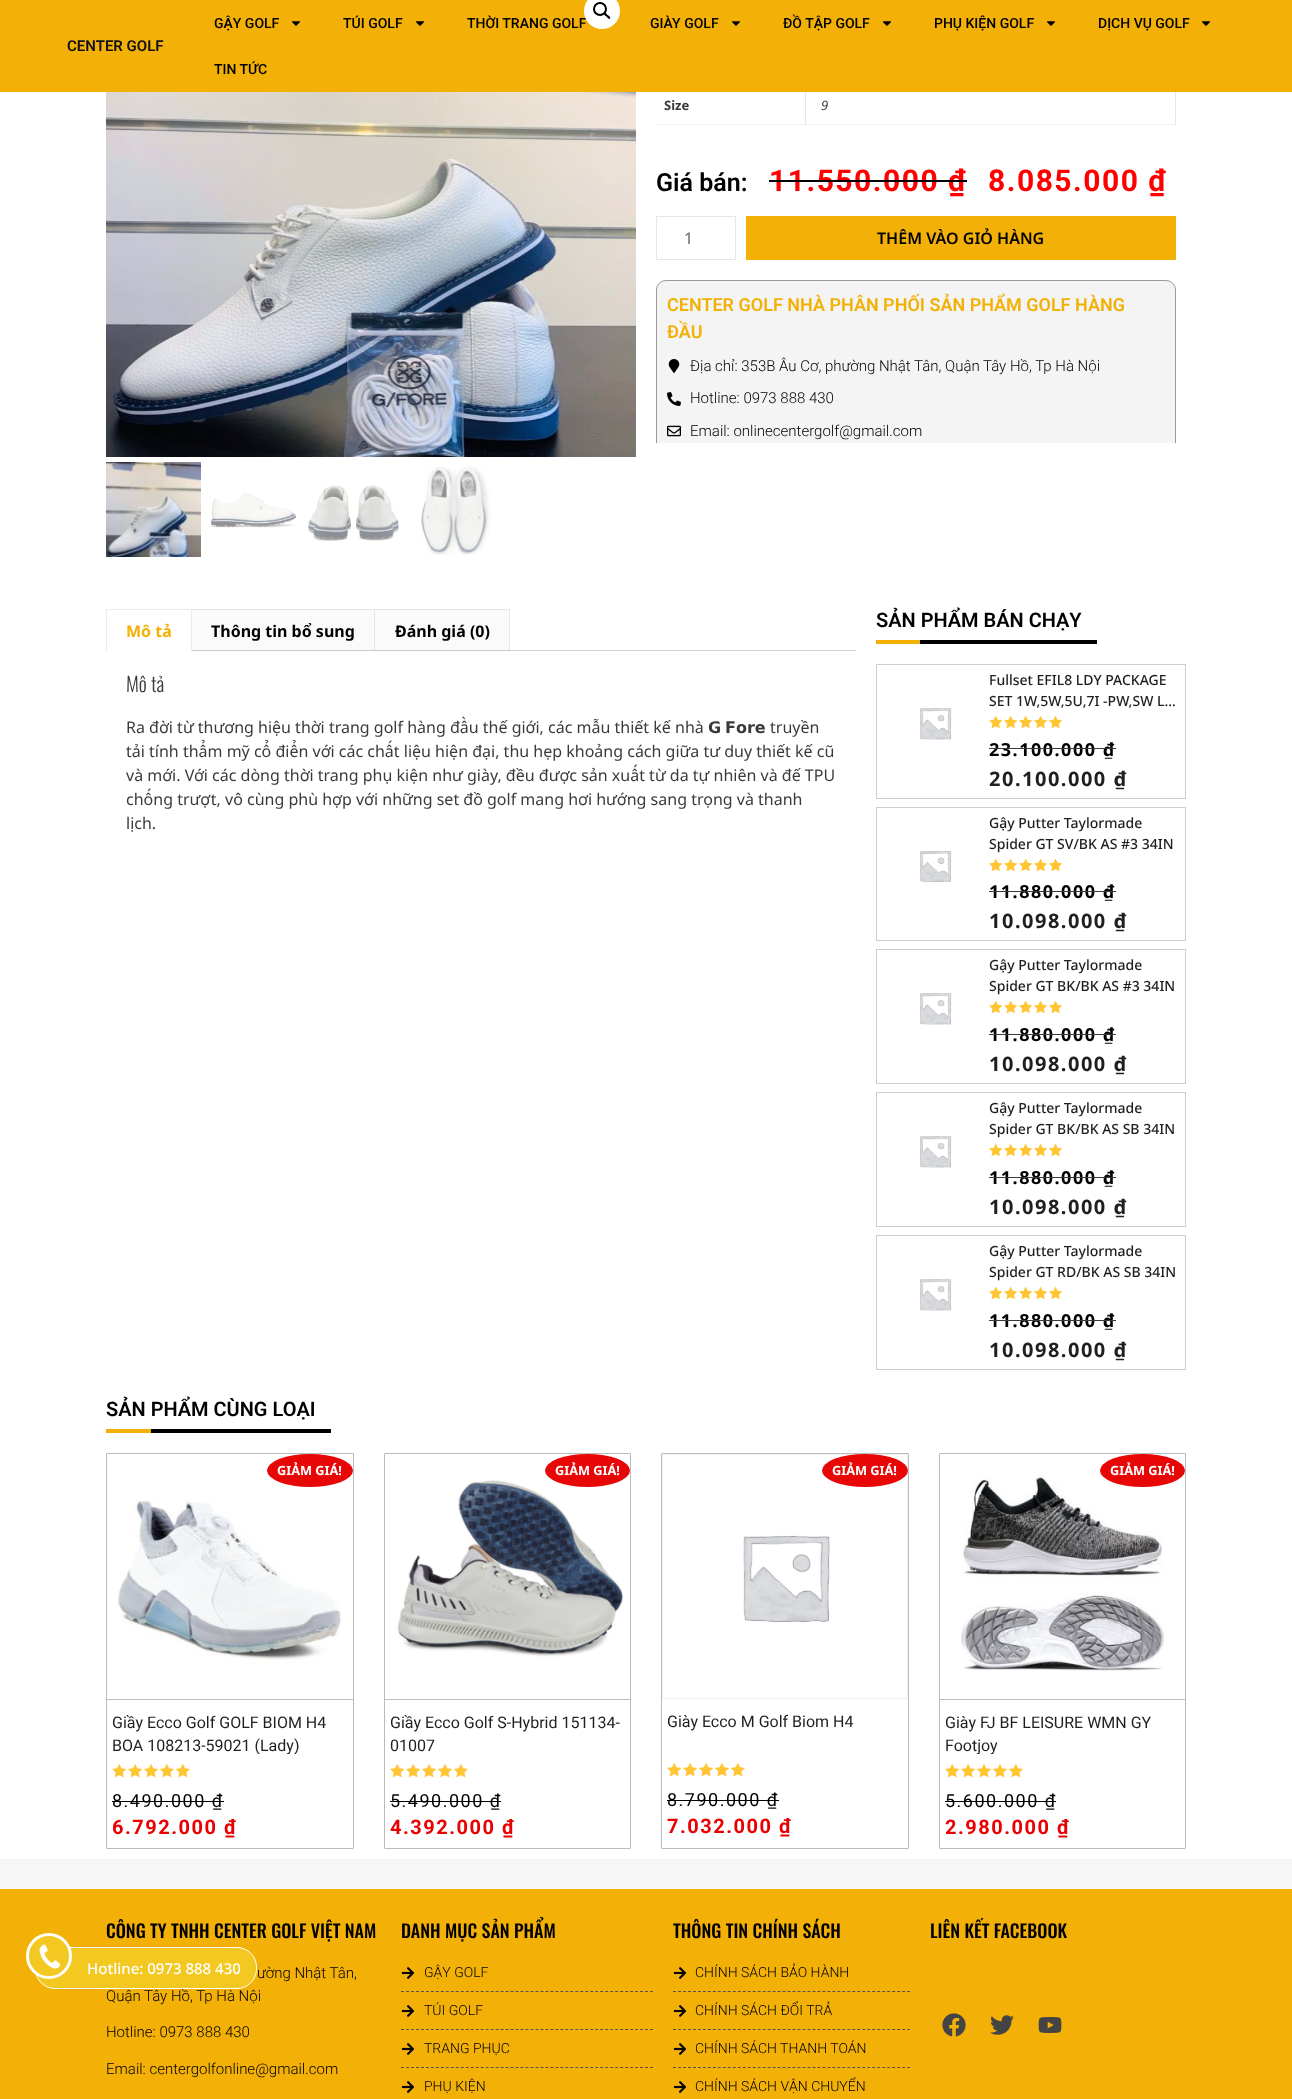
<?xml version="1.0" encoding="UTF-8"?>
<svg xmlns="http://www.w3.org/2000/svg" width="1292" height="2099">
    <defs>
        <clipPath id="clip1"><rect x="656" y="18" width="530" height="425"/></clipPath>
        <clipPath id="clip2"><rect x="112" y="1711" width="236" height="43"/></clipPath>
        <clipPath id="clip3"><rect x="945" y="1711" width="235" height="43"/></clipPath>
    </defs>
    <rect width="100%" height="100%" fill="#F6F6F6"/>
    <rect x="0" y="92" width="1292" height="1767" fill="#FFFFFF"/>
    <path d="M 806 88 V 125 L 805 124 V 88 Z" fill="#E6E6E6"/>
    <path d="M 1176 88 V 125 L 1175 124 V 88 Z" fill="#E6E6E6"/>
    <rect x="0" y="0" width="1292" height="92" fill="#F3B007"/>
    <text x="67" y="51" font-family="Roboto" font-size="15" font-weight="600" fill="#121111">CENTER GOLF</text>
    <text x="214" y="28" font-family="Roboto" font-size="14" font-weight="500" fill="#000000">GẬY GOLF</text>
    <image x="292" y="21" width="8" height="5" href="img_01.png"/>
    <text x="343" y="28" font-family="Roboto" font-size="14" font-weight="500" fill="#000000">TÚI GOLF</text>
    <image x="416" y="21" width="8" height="5" href="img_01.png"/>
    <text x="467" y="28" font-family="Roboto" font-size="14" font-weight="500" fill="#000000">THỜI TRANG GOLF</text>
    <text x="650" y="28" font-family="Roboto" font-size="14" font-weight="500" fill="#000000">GIÀY GOLF</text>
    <image x="732" y="21" width="8" height="5" href="img_01.png"/>
    <text x="783" y="28" font-family="Roboto" font-size="14" font-weight="500" fill="#000000">ĐỒ TẬP GOLF</text>
    <image x="883" y="21" width="8" height="5" href="img_01.png"/>
    <text x="934" y="28" font-family="Roboto" font-size="14" font-weight="500" fill="#000000">PHỤ KIỆN GOLF</text>
    <image x="1047" y="21" width="8" height="5" href="img_01.png"/>
    <text x="1098" y="28" font-family="Roboto" font-size="14" font-weight="500" fill="#000000">DỊCH VỤ GOLF</text>
    <image x="1202" y="21" width="8" height="5" href="img_01.png"/>
    <text x="214" y="74" font-family="Roboto" font-size="14" font-weight="500" fill="#000000">TIN TỨC</text>
    <circle cx="602" cy="11" r="18" fill="#FFFFFF"/>
    <circle cx="600" cy="9" r="6" fill="none" stroke="#000000" stroke-width="2"/>
    <path d="M 604 13 C 605.5 12 607 14.5 607.5 15 C 608.5 15.5 611 17.5 610 18.5 C 608.5 20 607 17 606.5 16.5 C 605.5 16 603 14 604 13 Z" fill="#000000"/>
    <image x="106" y="92" width="530" height="365" href="img_02.png"/>
    <image x="106" y="462" width="95" height="95" href="img_03.png"/>
    <image x="211" y="492" width="86" height="36" href="img_04.png"/>
    <image x="308" y="485" width="91" height="56" href="img_05.png"/>
    <image x="421" y="466" width="70" height="89" href="img_06.png"/>
    <path d="M 656 124.5 H 806" fill="none" stroke="#E6E6E6" stroke-dasharray="1 1"/>
    <text x="664" y="110" font-family="Noto Sans" font-size="13" font-weight="700" fill="#3A3A3A">Size</text>
    <path d="M 806 124.5 H 1176" fill="none" stroke="#E6E6E6" stroke-dasharray="1 1"/>
    <text x="821" y="110" font-family="Noto Sans" font-size="13" font-style="italic" fill="#3A3A3A">9</text>
    <text x="656" y="191" font-family="Roboto" font-size="25" font-weight="600" fill="#000000">Giá bán:</text>
    <text x="769" y="191" font-family="Roboto" font-size="30" font-weight="700" letter-spacing="1.5" fill="#FF0000">11.550.000 ₫</text>
    <rect x="769" y="180" width="198" height="2" fill="#000000"/>
    <text x="988" y="191" font-family="Roboto" font-size="30" font-weight="700" letter-spacing="1.5" fill="#FF0000">8.085.000 ₫</text>
    <rect x="656.5" y="216.5" width="79" height="43" fill="none" stroke="#E6E6E6"/>
    <text x="684" y="244" font-family="Noto Sans" font-size="16" fill="#666666">1</text>
    <rect x="746" y="216" width="430" height="44" fill="#F3B007"/>
    <text x="877" y="244" font-family="Noto Sans" font-size="16" font-weight="600" fill="#000000">THÊM VÀO GIỎ HÀNG</text>
    <path d="M 666 280 H 1166 C 1171.5 280 1176 284.5 1176 290 V 443 H 656 V 290 C 656 284.5 660.5 280 666 280 Z" fill="#F4F4F4"/>
    <g clip-path="url(#clip1)">
        <rect x="656.5" y="280.5" width="519" height="172" rx="9.5" fill="none" stroke="#9A9A99"/>
    </g>
    <text font-family="Roboto" font-size="18" font-weight="600" fill="#F3B007">
        <tspan x="667" y="311">CENTER GOLF NHÀ PHÂN PHỐI SẢN PHẨM GOLF HÀNG</tspan>
        <tspan x="667" y="338">ĐẦU</tspan>
    </text>
    <image x="668" y="359" width="12" height="14" href="img_07.png"/>
    <text x="690" y="371" font-family="Roboto" font-size="15" font-weight="300" fill="#000000">Địa chỉ: 353B Âu Cơ, phường Nhật Tân, Quận Tây Hồ, Tp Hà Nội</text>
    <image x="667" y="392" width="14" height="14" href="img_08.png"/>
    <text x="690" y="403" font-family="Roboto" font-size="15" font-weight="300" fill="#000000">Hotline: 0973 888 430</text>
    <image x="667" y="425" width="14" height="12" href="img_09.png"/>
    <text x="690" y="436" font-family="Roboto" font-size="15" font-weight="300" fill="#000000">Email: onlinecentergolf@gmail.com</text>
    <rect x="192" y="609" width="318" height="41" fill="#FAFAFA"/>
    <path d="M 106 609 H 192 L 191 610 H 107 Z" fill="#EBEBEB"/>
    <path d="M 192 609 V 651 H 191 V 610 Z" fill="#000000" fill-opacity="0.08"/>
    <path d="M 106 651 V 609 L 107 610 V 651 Z" fill="#000000" fill-opacity="0.08"/>
    <text x="126" y="637" font-family="Noto Sans" font-size="16" font-weight="700" fill="#F3B007">Mô tả</text>
    <path d="M 192 609 H 375 L 374 610 H 192 Z" fill="#E6E6E6"/>
    <rect x="192" y="650" width="318" height="1" fill="#CFCACE"/>
    <path d="M 375 609 V 651 H 374 V 610 Z" fill="#000000" fill-opacity="0.08"/>
    <text x="211" y="637" font-family="Noto Sans" font-size="16" font-weight="700" fill="#000000">Thông tin bổ sung</text>
    <path d="M 375 609 H 510 L 509 610 H 375 Z" fill="#E6E6E6"/>
    <path d="M 510 609 V 651 H 509 V 610 Z" fill="#000000" fill-opacity="0.08"/>
    <text x="395" y="637" font-family="Noto Sans" font-size="16" font-weight="700" fill="#000000">Đánh giá (0)</text>
    <rect x="510" y="650" width="346" height="1" fill="#D3CED2"/>
    <text x="126" y="692" font-family="Oswald" font-size="20" font-weight="300" fill="#3A3A3A">Mô tả</text>
    <text x="126" y="733" font-family="Noto Sans" font-size="16" fill="#3A3A3A">Ra đời từ thương hiệu thời trang golf hàng đầu thế giới, các mẫu thiết kế nhà</text>
    <text x="708" y="733" font-family="DejaVu Sans" font-size="16" font-weight="700" fill="#3A3A3A">𝗚</text>
    <text x="725" y="733" font-family="DejaVu Sans" font-size="16" font-weight="700" fill="#3A3A3A">𝗙𝗼𝗿𝗲</text>
    <text x="770" y="733" font-family="Noto Sans" font-size="16" fill="#3A3A3A">truyền</text>
    <text font-family="Noto Sans" font-size="16" fill="#3A3A3A">
        <tspan x="126" y="757">tải tính thẩm mỹ cổ điển với các chất liệu hiện đại, thu hẹp khoảng cách giữa tư duy thiết kế cũ</tspan>
        <tspan x="126" y="781">và mới. Với các dòng thời trang phụ kiện như giày, đều được sản xuất từ da tự nhiên và đế TPU</tspan>
        <tspan x="126" y="805">chống trượt, vô cùng phù hợp với những set đồ golf mang hơi hướng sang trọng và thanh</tspan>
        <tspan x="126" y="829">lịch.</tspan>
    </text>
    <rect x="920" y="640" width="177" height="4" fill="#000000"/>
    <text x="876" y="627" font-family="Roboto" font-size="20" font-weight="600" fill="#000000">SẢN PHẨM BÁN CHẠY</text>
    <rect x="876" y="640" width="44" height="4" fill="#F3B007"/>
    <rect x="876.5" y="664.5" width="309" height="134" fill="none" stroke="#CDCDCD"/>
    <text font-family="Noto Sans" font-size="14" font-weight="500" fill="#1E1F20">
        <tspan x="989" y="685">Fullset EFIL8 LDY PACKAGE</tspan>
        <tspan x="989" y="706">SET 1W,5W,5U,7I -PW,SW L…</tspan>
    </text>
    <image x="920" y="708" width="32" height="32" href="img_10.png"/>
    <image x="989" y="716" width="74" height="13" href="img_11.png"/>
    <text x="989" y="756" font-family="Noto Sans" font-size="18" font-weight="700" letter-spacing="1.5" fill="#000000">23.100.000 ₫</text>
    <rect x="989" y="748" width="127" height="1" fill="#3A3A3A"/>
    <text x="989" y="786" font-family="Noto Sans" font-size="20" font-weight="700" letter-spacing="1.5" fill="#1E1F20">20.100.000 ₫</text>
    <rect x="876.5" y="807.5" width="309" height="133" fill="none" stroke="#CDCDCD"/>
    <text font-family="Noto Sans" font-size="14" font-weight="500" fill="#1E1F20">
        <tspan x="989" y="828">Gậy Putter Taylormade</tspan>
        <tspan x="989" y="849">Spider GT SV/BK AS #3 34IN</tspan>
    </text>
    <image x="920" y="851" width="32" height="31" href="img_12.png"/>
    <image x="989" y="859" width="74" height="12" href="img_13.png"/>
    <text x="989" y="898" font-family="Noto Sans" font-size="18" font-weight="700" letter-spacing="1.5" fill="#000000">11.880.000 ₫</text>
    <rect x="989" y="891" width="127" height="1" fill="#3A3A3A"/>
    <text x="989" y="928" font-family="Noto Sans" font-size="20" font-weight="700" letter-spacing="1.5" fill="#1E1F20">10.098.000 ₫</text>
    <rect x="876.5" y="949.5" width="309" height="134" fill="none" stroke="#CDCDCD"/>
    <text font-family="Noto Sans" font-size="14" font-weight="500" fill="#1E1F20">
        <tspan x="989" y="970">Gậy Putter Taylormade</tspan>
        <tspan x="989" y="991">Spider GT BK/BK AS #3 34IN</tspan>
    </text>
    <image x="920" y="993" width="32" height="32" href="img_10.png"/>
    <image x="989" y="1001" width="74" height="13" href="img_11.png"/>
    <text x="989" y="1041" font-family="Noto Sans" font-size="18" font-weight="700" letter-spacing="1.5" fill="#000000">11.880.000 ₫</text>
    <rect x="989" y="1034" width="127" height="1" fill="#3A3A3A"/>
    <text x="989" y="1071" font-family="Noto Sans" font-size="20" font-weight="700" letter-spacing="1.5" fill="#1E1F20">10.098.000 ₫</text>
    <rect x="876.5" y="1092.5" width="309" height="134" fill="none" stroke="#CDCDCD"/>
    <text font-family="Noto Sans" font-size="14" font-weight="500" fill="#1E1F20">
        <tspan x="989" y="1113">Gậy Putter Taylormade</tspan>
        <tspan x="989" y="1134">Spider GT BK/BK AS SB 34IN</tspan>
    </text>
    <image x="920" y="1136" width="32" height="32" href="img_14.png"/>
    <image x="989" y="1144" width="74" height="13" href="img_11.png"/>
    <text x="989" y="1184" font-family="Noto Sans" font-size="18" font-weight="700" letter-spacing="1.5" fill="#000000">11.880.000 ₫</text>
    <rect x="989" y="1177" width="127" height="1" fill="#3A3A3A"/>
    <text x="989" y="1214" font-family="Noto Sans" font-size="20" font-weight="700" letter-spacing="1.5" fill="#1E1F20">10.098.000 ₫</text>
    <rect x="876.5" y="1235.5" width="309" height="134" fill="none" stroke="#CDCDCD"/>
    <text font-family="Noto Sans" font-size="14" font-weight="500" fill="#1E1F20">
        <tspan x="989" y="1256">Gậy Putter Taylormade</tspan>
        <tspan x="989" y="1277">Spider GT RD/BK AS SB 34IN</tspan>
    </text>
    <image x="920" y="1279" width="32" height="32" href="img_10.png"/>
    <image x="989" y="1287" width="74" height="13" href="img_11.png"/>
    <text x="989" y="1327" font-family="Noto Sans" font-size="18" font-weight="700" letter-spacing="1.5" fill="#000000">11.880.000 ₫</text>
    <rect x="989" y="1320" width="127" height="1" fill="#3A3A3A"/>
    <text x="989" y="1357" font-family="Noto Sans" font-size="20" font-weight="700" letter-spacing="1.5" fill="#1E1F20">10.098.000 ₫</text>
    <rect x="151" y="1429" width="180" height="4" fill="#000000"/>
    <text x="106" y="1416" font-family="Roboto" font-size="20" font-weight="600" fill="#000000">SẢN PHẨM CÙNG LOẠI</text>
    <rect x="106" y="1429" width="45" height="4" fill="#F3B007"/>
    <rect x="106.5" y="1453.5" width="247" height="395" rx="0.5" fill="none" stroke="#BBBBBB"/>
    <ellipse cx="310" cy="1470.5" rx="43" ry="16.5" fill="#E70707"/>
    <text x="277" y="1475" font-family="Noto Sans" font-size="12.75" font-weight="700" fill="#FFFFFF">GIẢM GIÁ!</text>
    <rect x="107" y="1699" width="246" height="1" fill="#BBBBBB"/>
    <image x="116" y="1500" width="227" height="160" href="img_15.png"/>
    <text x="112" y="1728" font-family="Roboto" font-size="16" fill="#1E1F20">Giầy Ecco Golf GOLF BIOM H4</text>
    <g clip-path="url(#clip2)">
        <text x="112" y="1751" font-family="Roboto" font-size="16" fill="#1E1F20">BOA 108213-59021 (Lady)</text>
    </g>
    <image x="112" y="1764" width="78" height="14" href="img_16.png"/>
    <text x="112" y="1807" font-family="Roboto" font-size="18" letter-spacing="1.5" fill="#000000">8.490.000 ₫</text>
    <rect x="112" y="1801" width="112" height="1" fill="#000000"/>
    <text x="112" y="1834" font-family="Roboto" font-size="20" font-weight="700" letter-spacing="1.5" fill="#E90000">6.792.000 ₫</text>
    <rect x="384.5" y="1453.5" width="246" height="395" rx="0.5" fill="none" stroke="#BBBBBB"/>
    <image x="397" y="1480" width="226" height="177" href="img_17.png"/>
    <ellipse cx="587.5" cy="1470.5" rx="42.5" ry="16.5" fill="#E70707"/>
    <text x="555" y="1475" font-family="Noto Sans" font-size="12.75" font-weight="700" fill="#FFFFFF">GIẢM GIÁ!</text>
    <rect x="385" y="1699" width="245" height="1" fill="#BBBBBB"/>
    <text font-family="Roboto" font-size="16" fill="#1E1F20">
        <tspan x="390" y="1728">Giầy Ecco Golf S-Hybrid 151134-</tspan>
        <tspan x="390" y="1751">01007</tspan>
    </text>
    <image x="390" y="1764" width="78" height="14" href="img_16.png"/>
    <text x="390" y="1807" font-family="Roboto" font-size="18" letter-spacing="1.5" fill="#000000">5.490.000 ₫</text>
    <rect x="390" y="1801" width="111" height="1" fill="#000000"/>
    <text x="390" y="1834" font-family="Roboto" font-size="20" font-weight="700" letter-spacing="1.5" fill="#E90000">4.392.000 ₫</text>
    <rect x="661.5" y="1453.5" width="247" height="395" rx="0.5" fill="none" stroke="#BBBBBB"/>
    <rect x="662.5" y="1454.5" width="245" height="244" fill="none" stroke="#F2F2F2"/>
    <image x="743" y="1535" width="87" height="88" href="img_18.png"/>
    <ellipse cx="865" cy="1470.5" rx="43" ry="16.5" fill="#E70707"/>
    <text x="832" y="1475" font-family="Noto Sans" font-size="12.75" font-weight="700" fill="#FFFFFF">GIẢM GIÁ!</text>
    <text x="667" y="1727" font-family="Roboto" font-size="16" fill="#1E1F20">Giày Ecco M Golf Biom H4</text>
    <image x="667" y="1763" width="78" height="14" href="img_16.png"/>
    <text x="667" y="1806" font-family="Roboto" font-size="18" letter-spacing="1.5" fill="#000000">8.790.000 ₫</text>
    <rect x="667" y="1800" width="112" height="1" fill="#000000"/>
    <text x="667" y="1833" font-family="Roboto" font-size="20" font-weight="700" letter-spacing="1.5" fill="#E90000">7.032.000 ₫</text>
    <rect x="939.5" y="1453.5" width="246" height="395" rx="0.5" fill="none" stroke="#BBBBBB"/>
    <image x="961" y="1474" width="205" height="197" href="img_19.png"/>
    <ellipse cx="1142.5" cy="1470.5" rx="42.5" ry="16.5" fill="#E70707"/>
    <text x="1110" y="1475" font-family="Noto Sans" font-size="12.75" font-weight="700" fill="#FFFFFF">GIẢM GIÁ!</text>
    <rect x="940" y="1699" width="245" height="1" fill="#BBBBBB"/>
    <text x="945" y="1728" font-family="Roboto" font-size="16" fill="#1E1F20">Giày FJ BF LEISURE WMN GY</text>
    <g clip-path="url(#clip3)">
        <text x="945" y="1751" font-family="Roboto" font-size="16" fill="#1E1F20">Footjoy</text>
    </g>
    <image x="945" y="1764" width="78" height="14" href="img_16.png"/>
    <text x="945" y="1807" font-family="Roboto" font-size="18" letter-spacing="1.5" fill="#000000">5.600.000 ₫</text>
    <rect x="945" y="1801" width="111" height="1" fill="#000000"/>
    <text x="945" y="1834" font-family="Roboto" font-size="20" font-weight="700" letter-spacing="1.5" fill="#E90000">2.980.000 ₫</text>
    <rect x="0" y="1889" width="1292" height="210" fill="#F3B007"/>
    <text x="106" y="1938" font-family="Oswald" font-size="18" font-weight="500" fill="#000000">CÔNG TY TNHH CENTER GOLF VIỆT NAM</text>
    <text x="257" y="1978" font-family="Roboto" font-size="15" font-weight="300" fill="#000000">ường Nhật Tân,</text>
    <text x="106" y="2001" font-family="Roboto" font-size="15" font-weight="300" fill="#000000">Quận Tây Hồ, Tp Hà Nội</text>
    <text x="106" y="2037" font-family="Roboto" font-size="15" font-weight="300" fill="#000000">Hotline: 0973 888 430</text>
    <text x="106" y="2074" font-family="Roboto" font-size="15" font-weight="300" fill="#000000">Email: centergolfonline@gmail.com</text>
    <text x="401" y="1938" font-family="Oswald" font-size="18" font-weight="500" fill="#000000">DANH MỤC SẢN PHẨM</text>
    <image x="401" y="1967" width="13" height="12" href="img_20.png"/>
    <text x="424" y="1977" font-family="Roboto" font-size="14" font-weight="300" fill="#000000">GẬY GOLF</text>
    <path d="M 401 1991.5 H 653" fill="none" stroke="#5C5151" stroke-dasharray="3 1.98"/>
    <image x="401" y="2005" width="13" height="12" href="img_20.png"/>
    <text x="424" y="2015" font-family="Roboto" font-size="14" font-weight="300" fill="#000000">TÚI GOLF</text>
    <path d="M 401 2029.5 H 653" fill="none" stroke="#5C5151" stroke-dasharray="3 1.98"/>
    <image x="401" y="2043" width="13" height="12" href="img_20.png"/>
    <text x="424" y="2053" font-family="Roboto" font-size="14" font-weight="300" fill="#000000">TRANG PHỤC</text>
    <path d="M 401 2067.5 H 653" fill="none" stroke="#5C5151" stroke-dasharray="3 1.98"/>
    <image x="401" y="2081" width="13" height="12" href="img_20.png"/>
    <text x="424" y="2091" font-family="Roboto" font-size="14" font-weight="300" fill="#000000">PHỤ KIỆN</text>
    <text x="673" y="1938" font-family="Oswald" font-size="18" font-weight="500" fill="#000000">THÔNG TIN CHÍNH SÁCH</text>
    <image x="673" y="1967" width="13" height="12" href="img_20.png"/>
    <text x="695" y="1977" font-family="Roboto" font-size="14" font-weight="300" fill="#000000">CHÍNH SÁCH BẢO HÀNH</text>
    <path d="M 673 1991.5 H 910" fill="none" stroke="#5C5151" stroke-dasharray="3 1.98"/>
    <image x="673" y="2005" width="13" height="12" href="img_20.png"/>
    <text x="695" y="2015" font-family="Roboto" font-size="14" font-weight="300" fill="#000000">CHÍNH SÁCH ĐỔI TRẢ</text>
    <path d="M 673 2029.5 H 910" fill="none" stroke="#5C5151" stroke-dasharray="3 1.98"/>
    <image x="673" y="2043" width="13" height="12" href="img_20.png"/>
    <text x="695" y="2053" font-family="Roboto" font-size="14" font-weight="300" fill="#000000">CHÍNH SÁCH THANH TOÁN</text>
    <path d="M 673 2067.5 H 910" fill="none" stroke="#5C5151" stroke-dasharray="3 1.98"/>
    <image x="673" y="2081" width="13" height="12" href="img_20.png"/>
    <text x="695" y="2091" font-family="Roboto" font-size="14" font-weight="300" fill="#000000">CHÍNH SÁCH VẬN CHUYỂN</text>
    <text x="930" y="1938" font-family="Oswald" font-size="18" font-weight="500" fill="#000000">LIÊN KẾT FACEBOOK</text>
    <image x="942" y="2013" width="24" height="24" href="img_21.png"/>
    <image x="990" y="2015" width="24" height="20" href="img_22.png"/>
    <image x="1038" y="2017" width="24" height="16" href="img_23.png"/>
    <rect x="35.5" y="1947.5" width="221" height="41" rx="19.5" fill="#F2C821" stroke="#FFFFFF"/>
    <circle cx="49" cy="1956" r="21.5" fill="#F2C821" stroke="#FFFFFF" stroke-width="3"/>
    <image x="39" y="1944" width="21" height="25" href="img_24.png"/>
    <text x="87" y="1974" font-family="Noto Sans" font-size="15" font-weight="500" fill="#FFFFFF">Hotline: 0973 888 430</text>
</svg>
